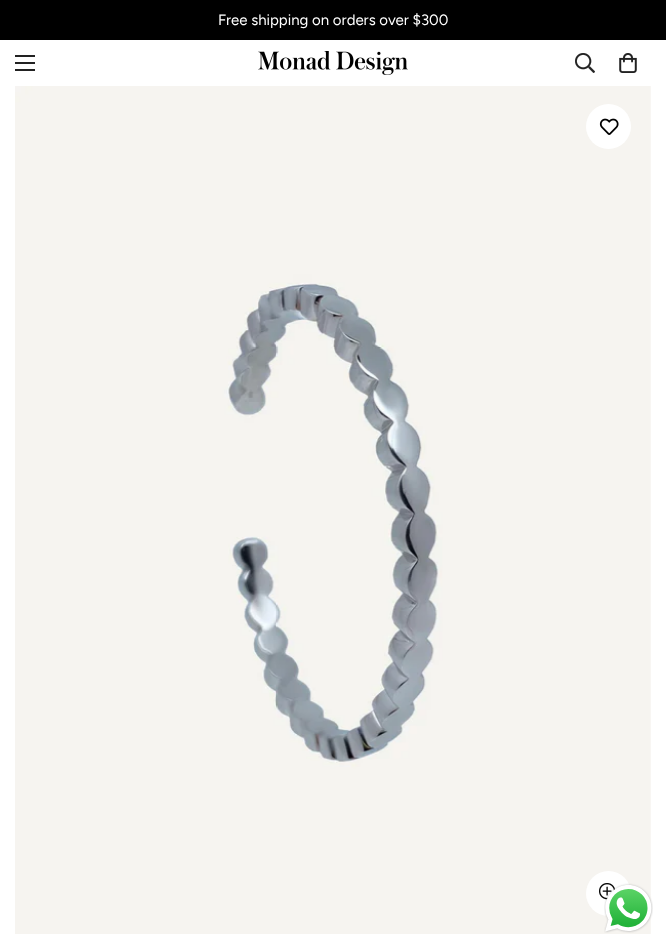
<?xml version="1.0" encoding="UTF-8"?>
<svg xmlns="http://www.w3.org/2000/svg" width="666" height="946">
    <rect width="100%" height="100%" fill="#FFFFFF"/>
    <rect x="0" y="0" width="666" height="40" fill="#000000"/>
    <text x="218" y="25" font-family="Figtree" font-size="15" fill="#FFFFFF">Free shipping on orders over $300</text>
    <rect x="15" y="62" width="20" height="2" fill="#222222"/>
    <rect x="15" y="55" width="20" height="2" fill="#222222"/>
    <rect x="15" y="69" width="20" height="2" fill="#222222"/>
    <image x="258" y="51" width="150" height="24" href="img_01.png"/>
    <image x="575" y="53" width="20" height="20" href="img_02.png"/>
    <image x="619" y="53" width="18" height="20" href="img_03.png"/>
    <image x="15" y="86" width="636" height="848" href="img_04.png"/>
    <circle cx="608.5" cy="893.5" r="22.5" fill="#FFFFFF"/>
    <image x="599" y="883" width="17" height="17" href="img_05.png"/>
    <circle cx="608.5" cy="126.5" r="22.5" fill="#FFFFFF"/>
    <image x="599" y="118" width="20" height="17" href="img_06.png"/>
    <image x="604" y="883" width="49" height="50" href="img_07.png"/>
</svg>
